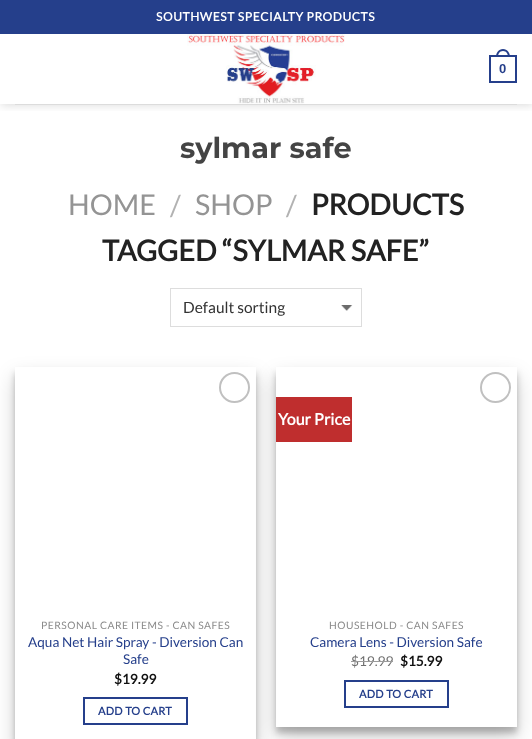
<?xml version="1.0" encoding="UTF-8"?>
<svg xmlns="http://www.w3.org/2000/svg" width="532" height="739">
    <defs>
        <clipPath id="clip1"><rect x="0" y="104" width="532" height="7"/></clipPath>
        <filter id="blur1" x="-50%" y="-200%" width="200%" height="500%"><feGaussianBlur stdDeviation="5"/></filter>
        <clipPath id="clip2"><path d="M 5 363 H 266 V 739 H 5 Z M 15 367 H 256 V 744 H 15 Z" clip-rule="evenodd"/></clipPath>
        <filter id="blur2" x="-50%" y="-200%" width="200%" height="500%"><feGaussianBlur stdDeviation="3"/></filter>
        <clipPath id="clip3"><path d="M 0 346 H 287 V 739 H 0 Z M 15 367 H 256 V 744 H 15 Z" clip-rule="evenodd"/></clipPath>
        <filter id="blur3" x="-50%" y="-200%" width="200%" height="500%"><feGaussianBlur stdDeviation="10"/></filter>
        <clipPath id="clip4"><path d="M 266 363 H 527 V 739 H 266 Z M 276 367 H 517 V 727 H 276 Z" clip-rule="evenodd"/></clipPath>
        <clipPath id="clip5"><path d="M 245 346 H 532 V 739 H 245 Z M 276 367 H 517 V 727 H 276 Z" clip-rule="evenodd"/></clipPath>
    </defs>
    <rect width="100%" height="100%" fill="#FFFFFF"/>
    <g clip-path="url(#clip1)">
        <rect x="1" y="1" width="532" height="104" fill="#000000" fill-opacity="0.15" filter="url(#blur1)"/>
    </g>
    <rect x="0" y="0" width="532" height="34" fill="#253F8B"/>
    <text x="156" y="21" font-family="Lato" font-size="12" font-weight="700" letter-spacing="0.6" fill="#FFFFFF">SOUTHWEST SPECIALTY PRODUCTS</text>
    <image x="187" y="34" width="158" height="70" href="img_01.png"/>
    <rect x="490" y="56" width="26" height="26" fill="none" stroke="#253F8B" stroke-width="2"/>
    <path d="M 503 49 C 507.5 49 510 53 510 57 H 496 C 496 53 498.5 49 503 49 Z M 503 51 C 506.5 51 508 54 508 57 H 498 C 498 54 499.5 51 503 51 Z" fill="#253F8B" fill-rule="evenodd"/>
    <text x="499" y="73" font-family="Liberation Sans" font-size="13" font-weight="700" fill="#253F8B">0</text>
    <rect x="15" y="104" width="502" height="1" fill="#DCDCDC"/>
    <text x="180" y="158" font-family="Montserrat" font-size="28.75" font-weight="700" fill="#444444">sylmar safe</text>
    <text x="68" y="215" font-family="Lato" font-size="28.75" fill="#949494">HOME</text>
    <text x="170" y="216" font-family="Lato" font-size="28.75" fill="#B2B2B2">/</text>
    <text x="195" y="215" font-family="Lato" font-size="28.75" fill="#949494">SHOP</text>
    <text x="286" y="216" font-family="Lato" font-size="28.75" fill="#B2B2B2">/</text>
    <text x="311" y="215" font-family="Lato" font-size="28.75" font-weight="700" fill="#222222">PRODUCTS</text>
    <text x="102" y="261" font-family="Lato" font-size="28.75" font-weight="700" fill="#222222">TAGGED “SYLMAR SAFE”</text>
    <image x="341" y="305" width="12" height="6" href="img_02.png"/>
    <rect x="170.5" y="288.5" width="191" height="38" fill="none" stroke="#DDDDDD"/>
    <text x="183" y="313" font-family="Lato" font-size="15.5" fill="#333333">Default sorting</text>
    <g clip-path="url(#clip2)">
        <rect x="15" y="373" width="241" height="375" fill="#000000" fill-opacity="0.22" filter="url(#blur2)"/>
    </g>
    <g clip-path="url(#clip3)">
        <rect x="15" y="377" width="241" height="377" fill="#000000" fill-opacity="0.19" filter="url(#blur3)"/>
    </g>
    <circle cx="234.5" cy="387.5" r="14.5" fill="none" stroke="#C0C0C0" stroke-width="2"/>
    <text x="41" y="629" font-family="Lato" font-size="10.25" letter-spacing="0.5" fill="#8B8B8B">PERSONAL CARE ITEMS - CAN SAFES</text>
    <text x="28" y="647" font-family="Lato" font-size="13.6" fill="#253F8B">Aqua Net Hair Spray - Diversion Can</text>
    <text x="123" y="664" font-family="Lato" font-size="13.6" fill="#253F8B">Safe</text>
    <text x="114" y="684" font-family="Lato" font-size="13.6" font-weight="700" fill="#111111">$19.99</text>
    <rect x="84" y="698" width="103" height="26" fill="none" stroke="#253F8B" stroke-width="2"/>
    <text x="98" y="715" font-family="Lato" font-size="11" font-weight="700" letter-spacing="0.25" fill="#253F8B">ADD TO CART</text>
    <g clip-path="url(#clip4)">
        <rect x="276" y="373" width="241" height="360" fill="#000000" fill-opacity="0.22" filter="url(#blur2)"/>
    </g>
    <g clip-path="url(#clip5)">
        <rect x="276" y="377" width="241" height="360" fill="#000000" fill-opacity="0.19" filter="url(#blur3)"/>
    </g>
    <rect x="276" y="397" width="76" height="45" fill="#BF2E2E"/>
    <text x="278" y="425" font-family="Lato" font-size="16" font-weight="700" fill="#FFFFFF">Your Price</text>
    <circle cx="495.5" cy="387.5" r="14.5" fill="none" stroke="#C0C0C0" stroke-width="2"/>
    <text x="329" y="629" font-family="Lato" font-size="10.25" letter-spacing="0.5" fill="#8B8B8B">HOUSEHOLD - CAN SAFES</text>
    <text x="310" y="647" font-family="Lato" font-size="13.6" fill="#253F8B">Camera Lens - Diversion Safe</text>
    <text x="351" y="666" font-family="Lato" font-size="13.6" fill="#707070">$19.99</text>
    <rect x="351" y="661" width="42" height="1" fill="#9B9B9B"/>
    <text x="400" y="666" font-family="Lato" font-size="13.6" font-weight="700" fill="#111111">$15.99</text>
    <rect x="345" y="681" width="103" height="26" fill="none" stroke="#253F8B" stroke-width="2"/>
    <text x="359" y="698" font-family="Lato" font-size="11" font-weight="700" letter-spacing="0.25" fill="#253F8B">ADD TO CART</text>
</svg>
